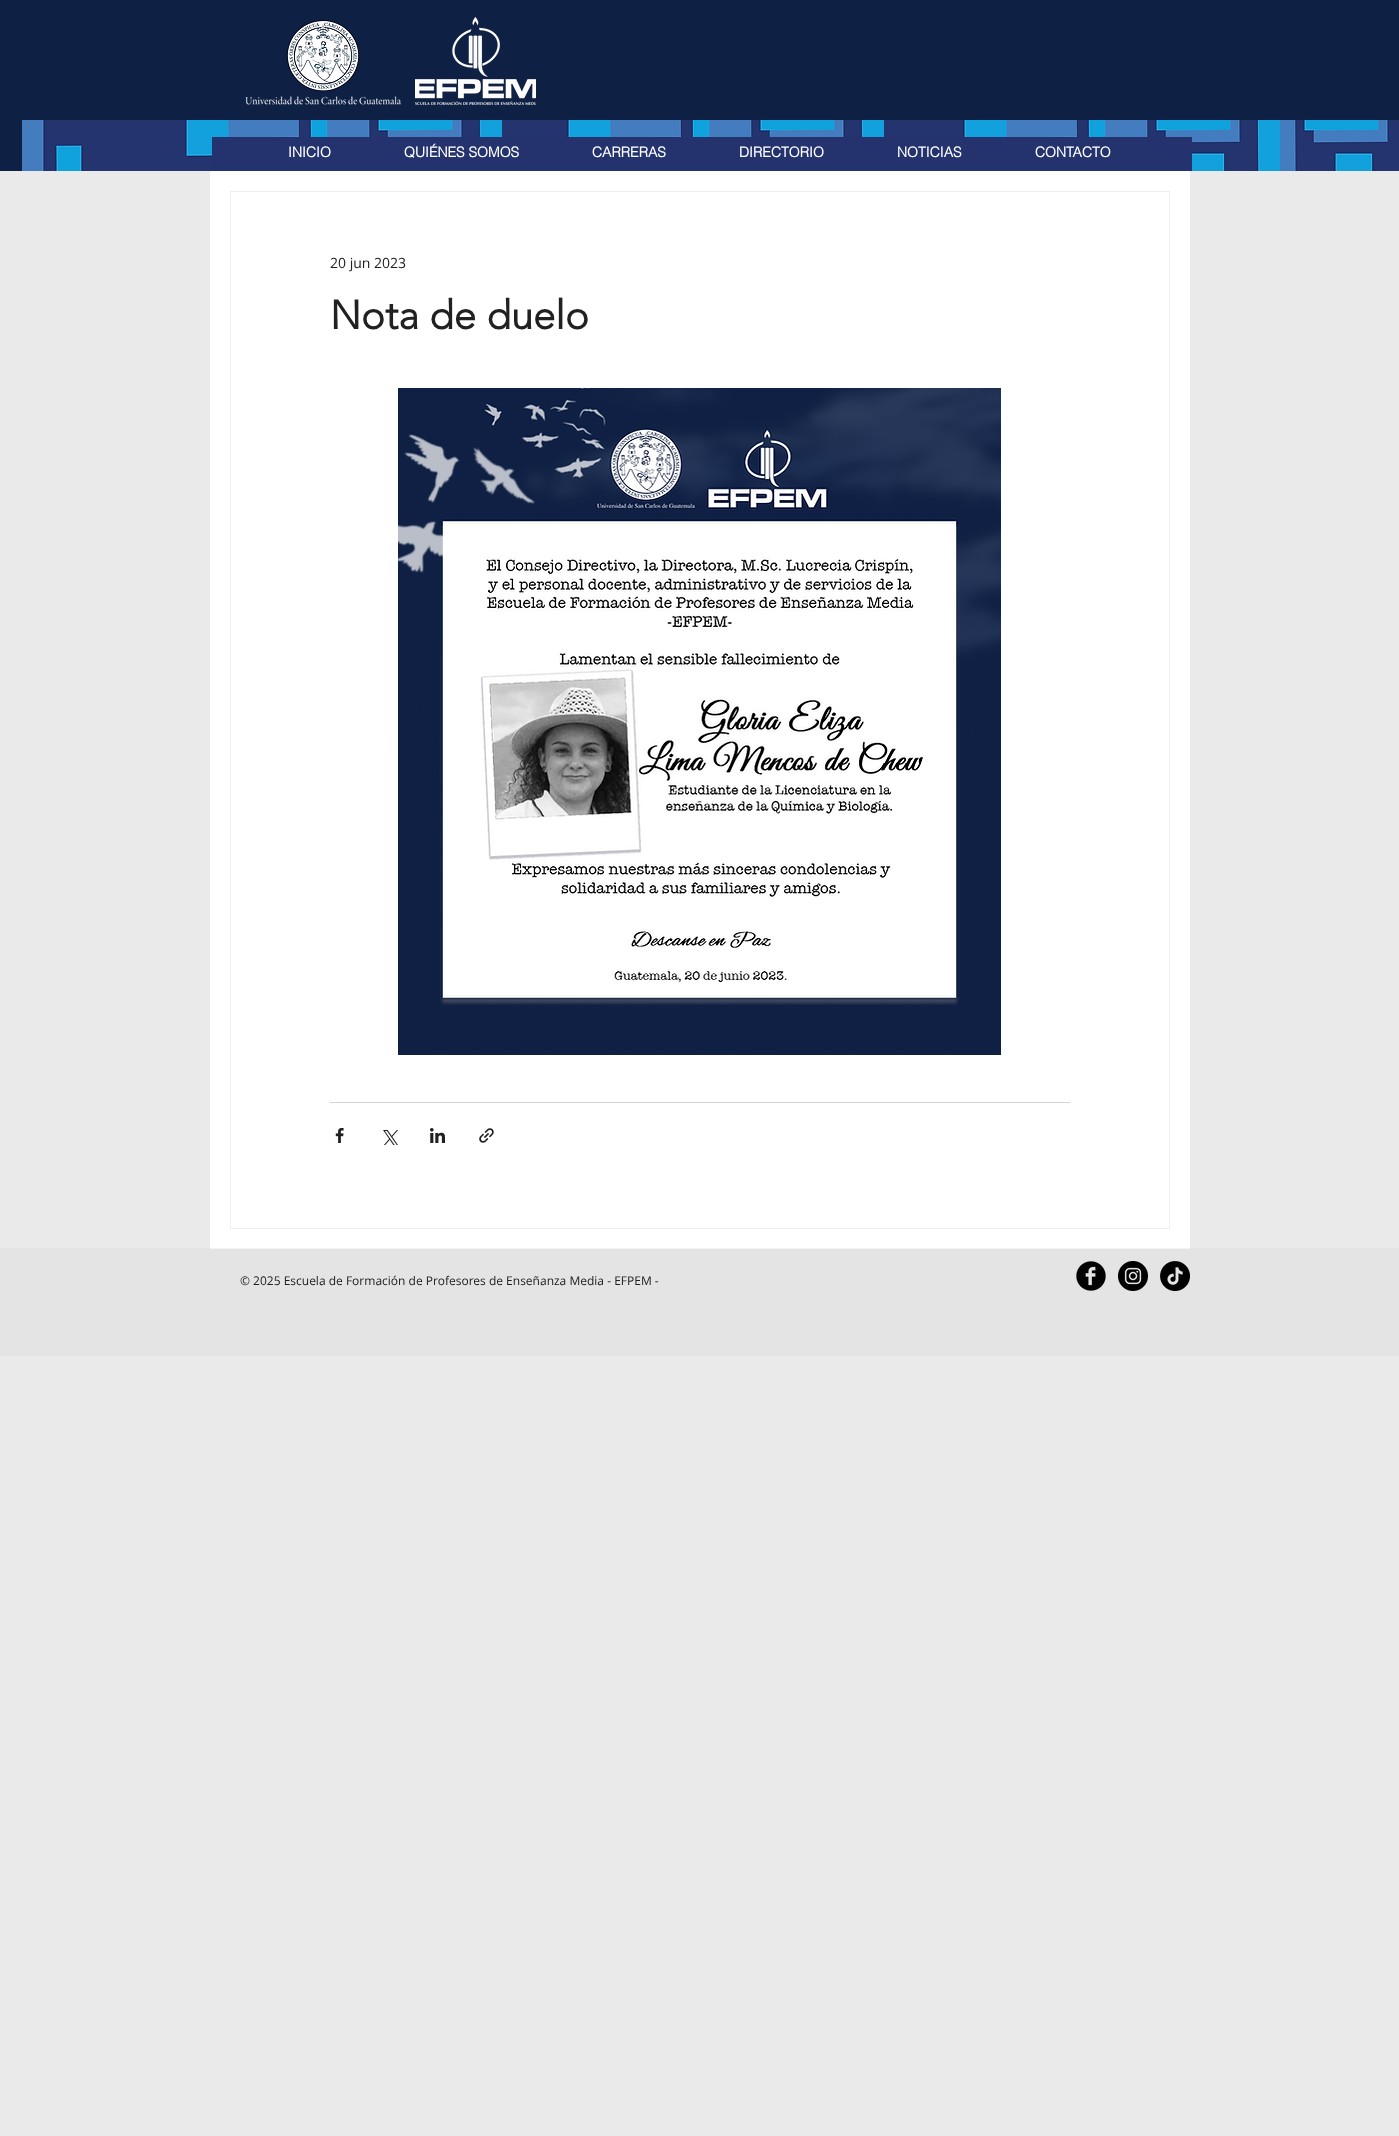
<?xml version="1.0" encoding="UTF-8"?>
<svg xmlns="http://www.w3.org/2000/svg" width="1399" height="2136">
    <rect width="100%" height="100%" fill="#EAEAEA"/>
    <rect x="0" y="0" width="1399" height="171" fill="#0E2144"/>
    <image x="245" y="20" width="156" height="85" href="img_01.png"/>
    <image x="415" y="17" width="121" height="88" href="img_02.png"/>
    <image x="22" y="120" width="480" height="51" href="img_03.png"/>
    <image x="502" y="120" width="382" height="17" href="img_04.png"/>
    <image x="884" y="120" width="396" height="51" href="img_05.png"/>
    <image x="1280" y="120" width="119" height="51" href="img_06.png"/>
    <rect x="212" y="137" width="980" height="34" fill="#24336E"/>
    <text x="288" y="157" font-family="helvetica" font-size="14" font-weight="700" fill="#FFFFFF">INICIO</text>
    <text x="404" y="157" font-family="helvetica" font-size="14" font-weight="700" fill="#FFFFFF">QUIÉNES SOMOS</text>
    <text x="592" y="157" font-family="helvetica" font-size="14" font-weight="700" fill="#FFFFFF">CARRERAS</text>
    <text x="739" y="157" font-family="helvetica" font-size="14" font-weight="700" fill="#FFFFFF">DIRECTORIO</text>
    <text x="897" y="157" font-family="helvetica" font-size="14" font-weight="700" fill="#FFFFFF">NOTICIAS</text>
    <text x="1035" y="157" font-family="helvetica" font-size="14" font-weight="700" fill="#FFFFFF">CONTACTO</text>
    <rect x="210" y="171" width="980" height="1077" fill="#FFFFFF"/>
    <rect x="0" y="1248" width="1399" height="108" fill="#E5E4E4"/>
    <rect x="210" y="1248" width="980" height="1" fill="#F4F3F3"/>
    <rect x="230.5" y="191.5" width="939" height="1037" fill="none" stroke="#EFEFEF"/>
    <text x="330" y="268" font-family="Open Sans" font-size="14" fill="#212121">20 jun 2023</text>
    <text x="330" y="329" font-family="'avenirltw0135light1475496'" font-size="40" font-weight="700" fill="#212121">Nota de duelo</text>
    <image x="398" y="388" width="603" height="667" href="img_07.png"/>
    <rect x="330" y="1102" width="740" height="1" fill="#D3D3D3"/>
    <image x="335" y="1128" width="9" height="15" href="img_08.png"/>
    <image x="383" y="1130" width="15" height="15" href="img_09.png"/>
    <image x="430" y="1128" width="15" height="15" href="img_10.png"/>
    <image x="479" y="1128" width="15" height="15" href="img_11.png"/>
    <text x="240" y="1285" font-family="Open Sans" font-size="12" fill="#212121">© 2025 Escuela de Formación de Profesores de Enseñanza Media - EFPEM -</text>
    <image x="1076" y="1261" width="30" height="30" href="img_12.png"/>
    <image x="1118" y="1261" width="30" height="30" href="img_13.png"/>
    <image x="1160" y="1261" width="30" height="30" href="img_14.png"/>
</svg>
